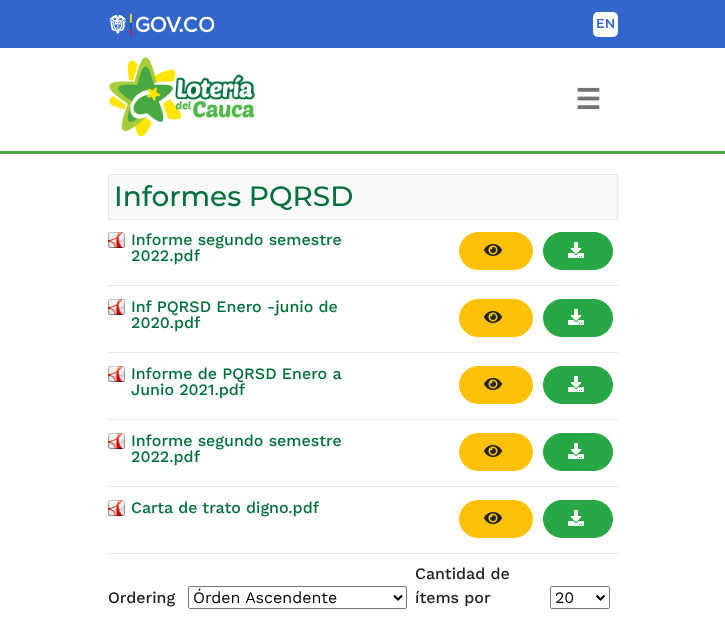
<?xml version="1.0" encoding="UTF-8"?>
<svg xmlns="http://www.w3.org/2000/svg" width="725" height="622">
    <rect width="100%" height="100%" fill="#FFFFFF"/>
    <rect x="0" y="0" width="725" height="48" fill="#3366CC"/>
    <image x="109" y="13" width="105" height="23" href="img_01.png"/>
    <rect x="593" y="12" width="25" height="25" rx="5" fill="#FFFFFF"/>
    <text x="596" y="28" font-family="Montserrat" font-size="13" font-weight="600" fill="#3366CC">EN</text>
    <image x="108" y="56" width="147" height="80" href="img_02.png"/>
    <rect x="0" y="151" width="725" height="3" fill="#47A742"/>
    <image x="577" y="87" width="23" height="23" href="img_03.png"/>
    <rect x="108.5" y="174.5" width="509" height="45" fill="#FAFAFA" stroke="#E9E9E9"/>
    <text x="114" y="206" font-family="Montserrat" font-size="28" font-weight="500" fill="#006F3B">Informes PQRSD</text>
    <image x="108" y="232" width="17" height="16" href="img_04.png"/>
    <text font-family="Work Sans" font-size="16" font-weight="500" fill="#006F3B">
        <tspan x="131" y="245">Informe segundo semestre</tspan>
        <tspan x="131" y="261">2022.pdf</tspan>
    </text>
    <rect x="459.5" y="232.5" width="73" height="37" rx="18.5" fill="#FFC107" stroke="#FFC107"/>
    <image x="484" y="244" width="18" height="12" href="img_05.png"/>
    <rect x="543.5" y="232.5" width="69" height="37" rx="18.5" fill="#28A745" stroke="#28A745"/>
    <image x="568" y="242" width="16" height="16" href="img_06.png"/>
    <rect x="108" y="285" width="510" height="1" fill="#E9E9E9"/>
    <image x="108" y="299" width="17" height="16" href="img_04.png"/>
    <text font-family="Work Sans" font-size="16" font-weight="500" fill="#006F3B">
        <tspan x="131" y="312">Inf PQRSD Enero -junio de</tspan>
        <tspan x="131" y="328">2020.pdf</tspan>
    </text>
    <rect x="459.5" y="299.5" width="73" height="37" rx="18.5" fill="#FFC107" stroke="#FFC107"/>
    <image x="484" y="311" width="18" height="12" href="img_05.png"/>
    <rect x="543.5" y="299.5" width="69" height="37" rx="18.5" fill="#28A745" stroke="#28A745"/>
    <image x="568" y="309" width="16" height="16" href="img_06.png"/>
    <rect x="108" y="352" width="510" height="1" fill="#E9E9E9"/>
    <image x="108" y="366" width="17" height="16" href="img_04.png"/>
    <text font-family="Work Sans" font-size="16" font-weight="500" fill="#006F3B">
        <tspan x="131" y="379">Informe de PQRSD Enero a</tspan>
        <tspan x="131" y="395">Junio 2021.pdf</tspan>
    </text>
    <rect x="459.5" y="366.5" width="73" height="37" rx="18.5" fill="#FFC107" stroke="#FFC107"/>
    <image x="484" y="378" width="18" height="12" href="img_05.png"/>
    <rect x="543.5" y="366.5" width="69" height="37" rx="18.5" fill="#28A745" stroke="#28A745"/>
    <image x="568" y="376" width="16" height="16" href="img_06.png"/>
    <rect x="108" y="419" width="510" height="1" fill="#E9E9E9"/>
    <image x="108" y="433" width="17" height="16" href="img_04.png"/>
    <text font-family="Work Sans" font-size="16" font-weight="500" fill="#006F3B">
        <tspan x="131" y="446">Informe segundo semestre</tspan>
        <tspan x="131" y="462">2022.pdf</tspan>
    </text>
    <rect x="459.5" y="433.5" width="73" height="37" rx="18.5" fill="#FFC107" stroke="#FFC107"/>
    <image x="484" y="445" width="18" height="12" href="img_05.png"/>
    <rect x="543.5" y="433.5" width="69" height="37" rx="18.5" fill="#28A745" stroke="#28A745"/>
    <image x="568" y="443" width="16" height="16" href="img_06.png"/>
    <rect x="108" y="486" width="510" height="1" fill="#E9E9E9"/>
    <image x="108" y="500" width="17" height="16" href="img_04.png"/>
    <text x="131" y="513" font-family="Work Sans" font-size="16" font-weight="500" fill="#006F3B">Carta de trato digno.pdf</text>
    <rect x="459.5" y="500.5" width="73" height="37" rx="18.5" fill="#FFC107" stroke="#FFC107"/>
    <image x="484" y="512" width="18" height="12" href="img_05.png"/>
    <rect x="543.5" y="500.5" width="69" height="37" rx="18.5" fill="#28A745" stroke="#28A745"/>
    <image x="568" y="510" width="16" height="16" href="img_06.png"/>
    <rect x="108" y="553" width="510" height="1" fill="#E9E9E9"/>
    <text x="415" y="579" font-family="Work Sans" font-size="16" font-weight="500" fill="#222222">Cantidad de</text>
    <text x="108" y="603" font-family="Work Sans" font-size="16" font-weight="500" fill="#222222">Ordering</text>
    <rect x="188.5" y="586.5" width="218" height="22" rx="1.5" fill="none" stroke="#767676"/>
    <path d="M 394 595.5 L 398 599.5 L 402 595.5" fill="none" stroke="#000000" stroke-width="2"/>
    <text x="193" y="603" font-family="Work Sans" font-size="16" fill="#000000">Órden Ascendente</text>
    <text x="415" y="603" font-family="Work Sans" font-size="16" font-weight="500" fill="#222222">ítems por</text>
    <rect x="550.5" y="586.5" width="59" height="22" rx="1.5" fill="none" stroke="#767676"/>
    <path d="M 596.5 595.5 L 600.5 599.5 L 604.5 595.5" fill="none" stroke="#000000" stroke-width="2"/>
    <text x="555" y="603" font-family="Work Sans" font-size="16" fill="#000000">20</text>
</svg>
